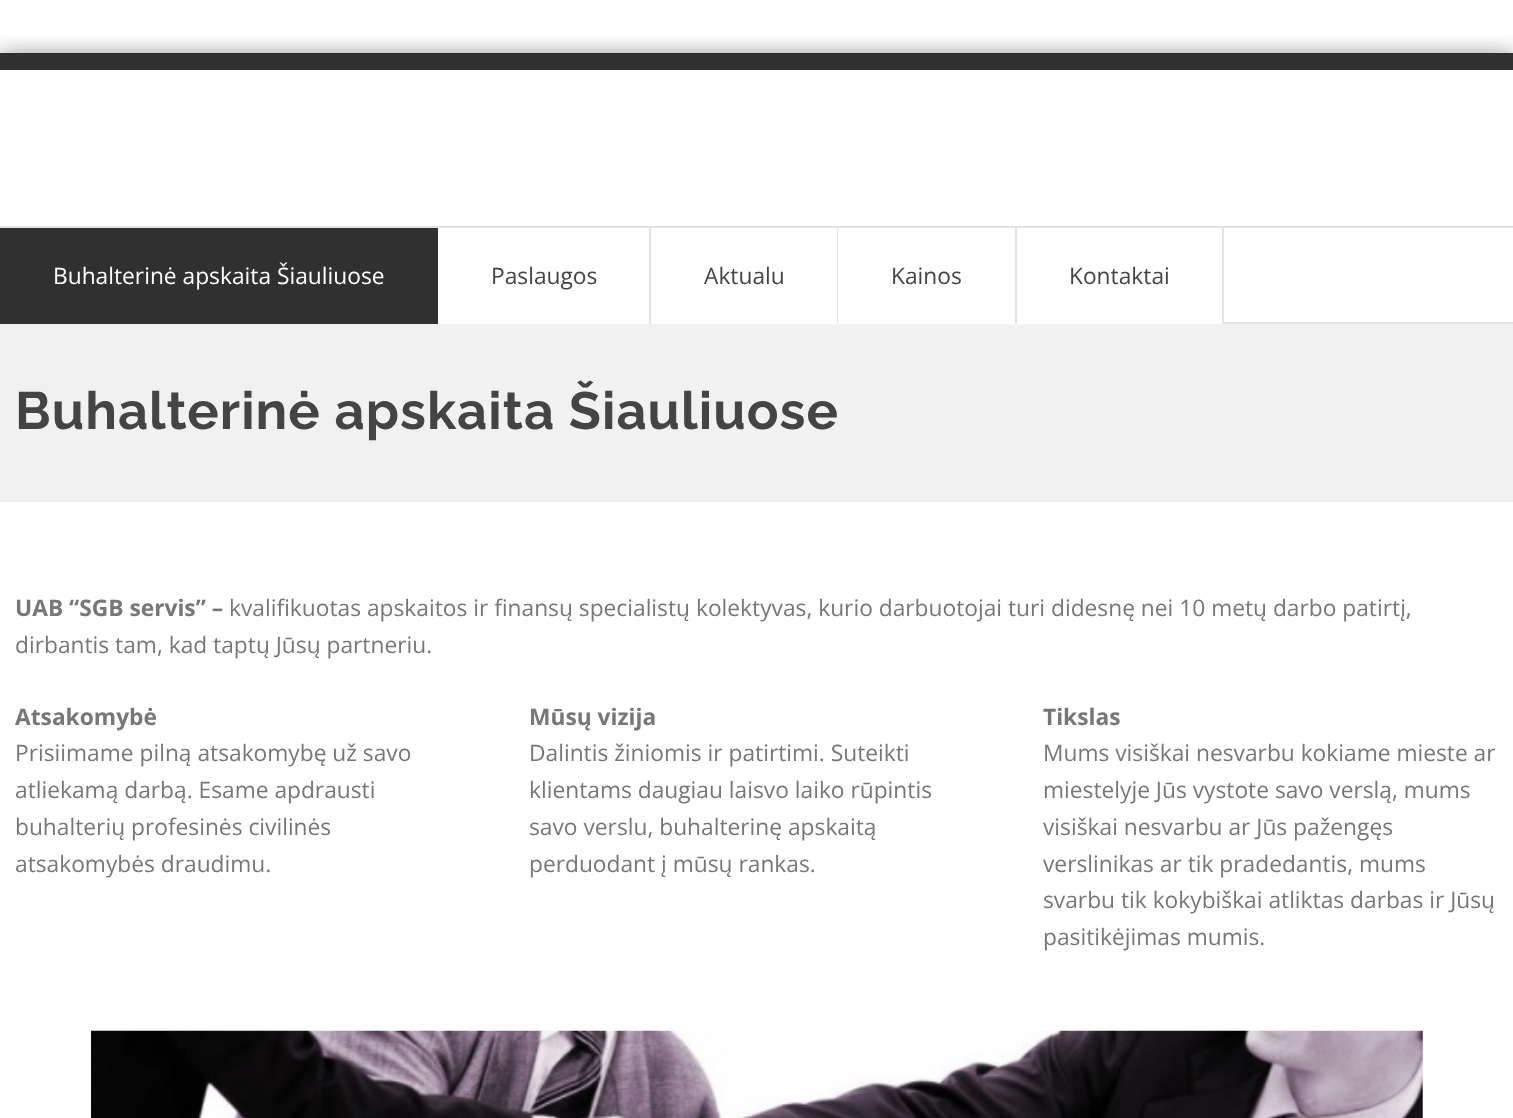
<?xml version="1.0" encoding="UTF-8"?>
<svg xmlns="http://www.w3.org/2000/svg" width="1513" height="1118">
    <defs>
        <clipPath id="clip1"><rect x="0" y="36" width="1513" height="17"/></clipPath>
        <filter id="blur1" x="-50%" y="-200%" width="200%" height="500%"><feGaussianBlur stdDeviation="10.5"/></filter>
    </defs>
    <rect width="100%" height="100%" fill="#FFFFFF"/>
    <g clip-path="url(#clip1)">
        <rect x="0" y="53" width="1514" height="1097" fill="#000000" fill-opacity="0.4" filter="url(#blur1)"/>
    </g>
    <rect x="0" y="53" width="1513" height="17" fill="#303030"/>
    <rect x="0" y="226" width="1513" height="2" fill="#E3E3E3"/>
    <rect x="1224" y="322" width="289" height="2" fill="#E3E3E3"/>
    <rect x="0" y="228" width="438" height="96" fill="#303030"/>
    <text x="53" y="284" font-family="Open Sans" font-size="22.75" fill="#FFFFFF">Buhalterinė apskaita Šiauliuose</text>
    <rect x="649" y="228" width="2" height="96" fill="#E3E3E3"/>
    <text x="491" y="284" font-family="Open Sans" font-size="22.75" fill="#444444">Paslaugos</text>
    <rect x="837" y="228" width="1" height="96" fill="#E3E3E3"/>
    <text x="704" y="284" font-family="Open Sans" font-size="22.75" fill="#444444">Aktualu</text>
    <rect x="1015" y="228" width="2" height="96" fill="#E3E3E3"/>
    <text x="891" y="284" font-family="Open Sans" font-size="22.75" fill="#444444">Kainos</text>
    <rect x="1222" y="228" width="2" height="96" fill="#E3E3E3"/>
    <text x="1069" y="284" font-family="Open Sans" font-size="22.75" fill="#444444">Kontaktai</text>
    <rect x="0" y="324" width="1513" height="177" fill="#F1F1F1"/>
    <rect x="0" y="501" width="1513" height="1" fill="#EAEAEA"/>
    <text x="15" y="429" font-family="Raleway" font-size="52.5" font-weight="700" letter-spacing="1.05" fill="#444444">Buhalterinė apskaita Šiauliuose</text>
    <text x="15" y="616" font-family="Open Sans" font-size="22.75" font-weight="700" fill="#777777">UAB “SGB servis” –</text>
    <text x="229" y="616" font-family="Open Sans" font-size="22.75" fill="#777777">kvalifikuotas apskaitos ir finansų specialistų kolektyvas, kurio darbuotojai turi didesnę nei 10 metų darbo patirtį,</text>
    <text x="15" y="653" font-family="Open Sans" font-size="22.75" fill="#777777">dirbantis tam, kad taptų Jūsų partneriu.</text>
    <text x="15" y="725" font-family="Open Sans" font-size="22.75" font-weight="700" fill="#777777">Atsakomybė</text>
    <text font-family="Open Sans" font-size="22.75" fill="#777777">
        <tspan x="15" y="761">Prisiimame pilną atsakomybę už savo</tspan>
        <tspan x="15" y="798">atliekamą darbą. Esame apdrausti</tspan>
        <tspan x="15" y="835">buhalterių profesinės civilinės</tspan>
        <tspan x="15" y="872">atsakomybės draudimu.</tspan>
    </text>
    <text x="529" y="725" font-family="Open Sans" font-size="22.75" font-weight="700" fill="#777777">Mūsų vizija</text>
    <text font-family="Open Sans" font-size="22.75" fill="#777777">
        <tspan x="529" y="761">Dalintis žiniomis ir patirtimi. Suteikti</tspan>
        <tspan x="529" y="798">klientams daugiau laisvo laiko rūpintis</tspan>
        <tspan x="529" y="835">savo verslu, buhalterinę apskaitą</tspan>
        <tspan x="529" y="872">perduodant į mūsų rankas.</tspan>
    </text>
    <text x="1043" y="725" font-family="Open Sans" font-size="22.75" font-weight="700" fill="#777777">Tikslas</text>
    <text font-family="Open Sans" font-size="22.75" fill="#777777">
        <tspan x="1043" y="761">Mums visiškai nesvarbu kokiame mieste ar</tspan>
        <tspan x="1043" y="798">miestelyje Jūs vystote savo verslą, mums</tspan>
        <tspan x="1043" y="835">visiškai nesvarbu ar Jūs pažengęs</tspan>
        <tspan x="1043" y="872">verslinikas ar tik pradedantis, mums</tspan>
        <tspan x="1043" y="908">svarbu tik kokybiškai atliktas darbas ir Jūsų</tspan>
        <tspan x="1043" y="945">pasitikėjimas mumis.</tspan>
    </text>
    <image x="91" y="1030" width="1332" height="88" href="img_01.png"/>
</svg>
